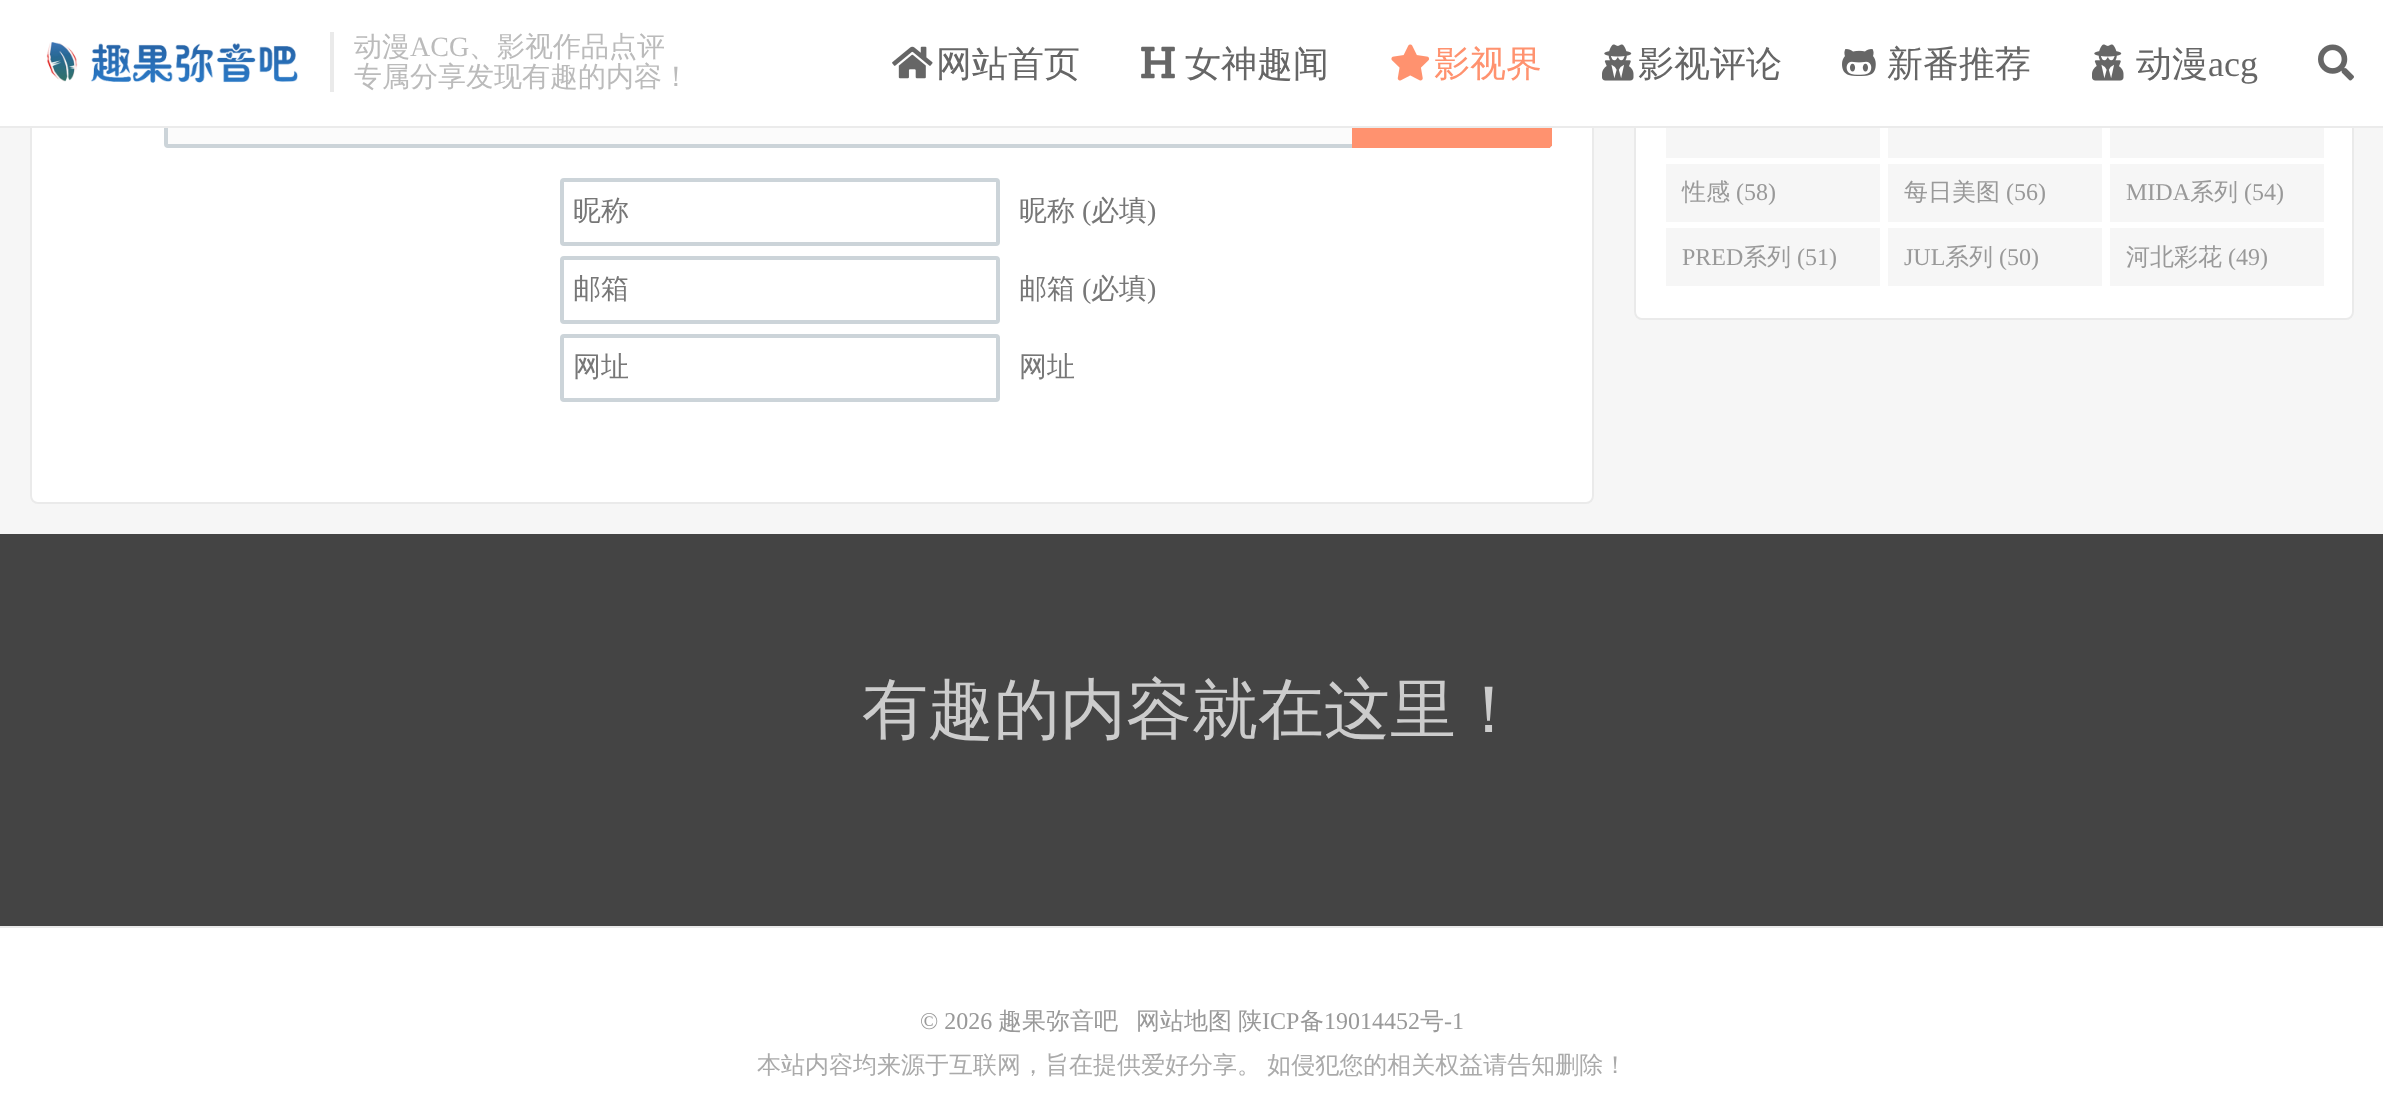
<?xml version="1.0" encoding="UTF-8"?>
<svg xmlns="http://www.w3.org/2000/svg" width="2383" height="1103">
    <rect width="100%" height="100%" fill="#F6F6F6"/>
    <rect x="31" y="-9" width="1562" height="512" rx="7" fill="#FFFFFF" stroke="#EAEAEA" stroke-width="2"/>
    <rect x="166" y="-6" width="1384" height="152" rx="2" fill="none" stroke="#CCD4D9" stroke-width="4"/>
    <path d="M 1352 72 H 1552 V 144 C 1552 146 1550 148 1548 148 H 1352 Z" fill="#FF926F"/>
    <rect x="1635" y="-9" width="718" height="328" rx="7" fill="#FFFFFF" stroke="#EAEAEA" stroke-width="2"/>
    <rect x="0" y="0" width="2383" height="126" fill="#FFFFFF"/>
    <rect x="0" y="126" width="2383" height="2" fill="#EBEBEB"/>
    <image x="46" y="42" width="252" height="41" href="img_01.png"/>
    <rect x="330" y="32" width="4" height="60" fill="#EAEAEA"/>
    <text x="354" y="56" font-family="WenQuanYi Zen Hei" font-size="28" font-weight="500" fill="#BBBBBB">动漫</text>
    <text x="410" y="56" font-family="Liberation Serif" font-size="28" fill="#BBBBBB">ACG</text>
    <text x="469" y="56" font-family="WenQuanYi Zen Hei" font-size="28" font-weight="500" fill="#BBBBBB">、影视作品点评</text>
    <text x="354" y="86" font-family="WenQuanYi Zen Hei" font-size="28" font-weight="500" fill="#BBBBBB">专属分享发现有趣的内容！</text>
    <image x="892" y="46" width="41" height="33" href="img_02.png"/>
    <text x="936" y="76" font-family="WenQuanYi Zen Hei" font-size="36" font-weight="500" fill="#666666">网站首页</text>
    <image x="1141" y="46" width="34" height="33" href="img_03.png"/>
    <text x="1185" y="76" font-family="WenQuanYi Zen Hei" font-size="36" font-weight="500" fill="#666666">女神趣闻</text>
    <image x="1391" y="44" width="39" height="37" href="img_04.png"/>
    <text x="1434" y="76" font-family="WenQuanYi Zen Hei" font-size="36" font-weight="500" fill="#FF926F">影视界</text>
    <image x="1602" y="44" width="32" height="37" href="img_05.png"/>
    <text x="1638" y="76" font-family="WenQuanYi Zen Hei" font-size="36" font-weight="500" fill="#666666">影视评论</text>
    <image x="1842" y="49" width="34" height="27" href="img_06.png"/>
    <text x="1887" y="76" font-family="WenQuanYi Zen Hei" font-size="36" font-weight="500" fill="#666666">新番推荐</text>
    <image x="2092" y="44" width="32" height="37" href="img_05.png"/>
    <text x="2136" y="76" font-family="WenQuanYi Zen Hei" font-size="36" font-weight="500" fill="#666666">动漫</text>
    <text x="2208" y="76" font-family="Liberation Serif" font-size="36" fill="#666666">acg</text>
    <image x="2318" y="44" width="36" height="37" href="img_07.png"/>
    <rect x="168" y="128" width="1184" height="16" fill="#FBFBFB"/>
    <rect x="1551" y="144" width="1" height="2" fill="#FF926F"/>
    <rect x="1548" y="147" width="2" height="1" fill="#FF926F"/>
    <rect x="562" y="180" width="436" height="64" rx="2" fill="none" stroke="#CCD4D9" stroke-width="4"/>
    <text x="573" y="220" font-family="WenQuanYi Zen Hei" font-size="28" font-weight="500" fill="#777777">昵称</text>
    <text x="1019" y="220" font-family="WenQuanYi Zen Hei" font-size="28" font-weight="500" fill="#777777">昵称</text>
    <text x="1082" y="220" font-family="Liberation Serif" font-size="28" fill="#777777">(</text>
    <text x="1091" y="220" font-family="WenQuanYi Zen Hei" font-size="28" font-weight="500" fill="#777777">必填</text>
    <text x="1147" y="220" font-family="Liberation Serif" font-size="28" fill="#777777">)</text>
    <rect x="562" y="258" width="436" height="64" rx="2" fill="none" stroke="#CCD4D9" stroke-width="4"/>
    <text x="573" y="298" font-family="WenQuanYi Zen Hei" font-size="28" font-weight="500" fill="#777777">邮箱</text>
    <text x="1019" y="298" font-family="WenQuanYi Zen Hei" font-size="28" font-weight="500" fill="#777777">邮箱</text>
    <text x="1082" y="298" font-family="Liberation Serif" font-size="28" fill="#777777">(</text>
    <text x="1091" y="298" font-family="WenQuanYi Zen Hei" font-size="28" font-weight="500" fill="#777777">必填</text>
    <text x="1147" y="298" font-family="Liberation Serif" font-size="28" fill="#777777">)</text>
    <rect x="562" y="336" width="436" height="64" rx="2" fill="none" stroke="#CCD4D9" stroke-width="4"/>
    <text x="573" y="376" font-family="WenQuanYi Zen Hei" font-size="28" font-weight="500" fill="#777777">网址</text>
    <text x="1019" y="376" font-family="WenQuanYi Zen Hei" font-size="28" font-weight="500" fill="#777777">网址</text>
    <rect x="1666" y="128" width="214" height="30" fill="#F6F6F6"/>
    <rect x="1888" y="128" width="214" height="30" fill="#F6F6F6"/>
    <rect x="2110" y="128" width="214" height="30" fill="#F6F6F6"/>
    <rect x="1666" y="164" width="214" height="58" fill="#F6F6F6"/>
    <text x="1682" y="200" font-family="WenQuanYi Zen Hei" font-size="24" font-weight="500" fill="#999999">性感</text>
    <text x="1736" y="200" font-family="Liberation Serif" font-size="24" fill="#999999">(58)</text>
    <rect x="1888" y="164" width="214" height="58" fill="#F6F6F6"/>
    <text x="1904" y="200" font-family="WenQuanYi Zen Hei" font-size="24" font-weight="500" fill="#999999">每日美图</text>
    <text x="2006" y="200" font-family="Liberation Serif" font-size="24" fill="#999999">(56)</text>
    <rect x="2110" y="164" width="214" height="58" fill="#F6F6F6"/>
    <text x="2126" y="200" font-family="Liberation Serif" font-size="24" fill="#999999">MIDA</text>
    <text x="2190" y="200" font-family="WenQuanYi Zen Hei" font-size="24" font-weight="500" fill="#999999">系列</text>
    <text x="2244" y="200" font-family="Liberation Serif" font-size="24" fill="#999999">(54)</text>
    <rect x="1666" y="228" width="214" height="58" fill="#F6F6F6"/>
    <text x="1682" y="265" font-family="Liberation Serif" font-size="24" fill="#999999">PRED</text>
    <text x="1743" y="265" font-family="WenQuanYi Zen Hei" font-size="24" font-weight="500" fill="#999999">系列</text>
    <text x="1797" y="265" font-family="Liberation Serif" font-size="24" fill="#999999">(51)</text>
    <rect x="1888" y="228" width="214" height="58" fill="#F6F6F6"/>
    <text x="1904" y="265" font-family="Liberation Serif" font-size="24" fill="#999999">JUL</text>
    <text x="1945" y="265" font-family="WenQuanYi Zen Hei" font-size="24" font-weight="500" fill="#999999">系列</text>
    <text x="1999" y="265" font-family="Liberation Serif" font-size="24" fill="#999999">(50)</text>
    <rect x="2110" y="228" width="214" height="58" fill="#F6F6F6"/>
    <text x="2126" y="265" font-family="WenQuanYi Zen Hei" font-size="24" font-weight="500" fill="#999999">河北彩花</text>
    <text x="2228" y="265" font-family="Liberation Serif" font-size="24" fill="#999999">(49)</text>
    <rect x="0" y="534" width="2383" height="392" fill="#444444"/>
    <text x="862" y="732" font-family="WenQuanYi Zen Hei" font-size="66" font-weight="500" fill="#CCCCCC">有趣的内容就在这里！</text>
    <rect x="0" y="928" width="2383" height="175" fill="#FFFFFF"/>
    <rect x="0" y="926" width="2383" height="2" fill="#EAEAEA"/>
    <text x="920" y="1029" font-family="Liberation Serif" font-size="24" fill="#999999">© 2026</text>
    <text x="998" y="1029" font-family="WenQuanYi Zen Hei" font-size="24" font-weight="500" fill="#999999">趣果弥音吧</text>
    <text x="1136" y="1029" font-family="WenQuanYi Zen Hei" font-size="24" font-weight="500" fill="#999999">网站地图</text>
    <text x="1238" y="1029" font-family="WenQuanYi Zen Hei" font-size="24" font-weight="500" fill="#999999">陕</text>
    <text x="1262" y="1029" font-family="Liberation Serif" font-size="24" fill="#999999">ICP</text>
    <text x="1300" y="1029" font-family="WenQuanYi Zen Hei" font-size="24" font-weight="500" fill="#999999">备</text>
    <text x="1324" y="1029" font-family="Liberation Serif" font-size="24" fill="#999999">19014452</text>
    <text x="1420" y="1029" font-family="WenQuanYi Zen Hei" font-size="24" font-weight="500" fill="#999999">号</text>
    <text x="1444" y="1029" font-family="Liberation Serif" font-size="24" fill="#999999">-1</text>
    <text x="757" y="1073" word-spacing="-1" font-family="WenQuanYi Zen Hei" font-size="24" font-weight="500" fill="#AAAAAA">本站内容均来源于互联网，旨在提供爱好分享。 如侵犯您的相关权益请告知删除！</text>
</svg>
